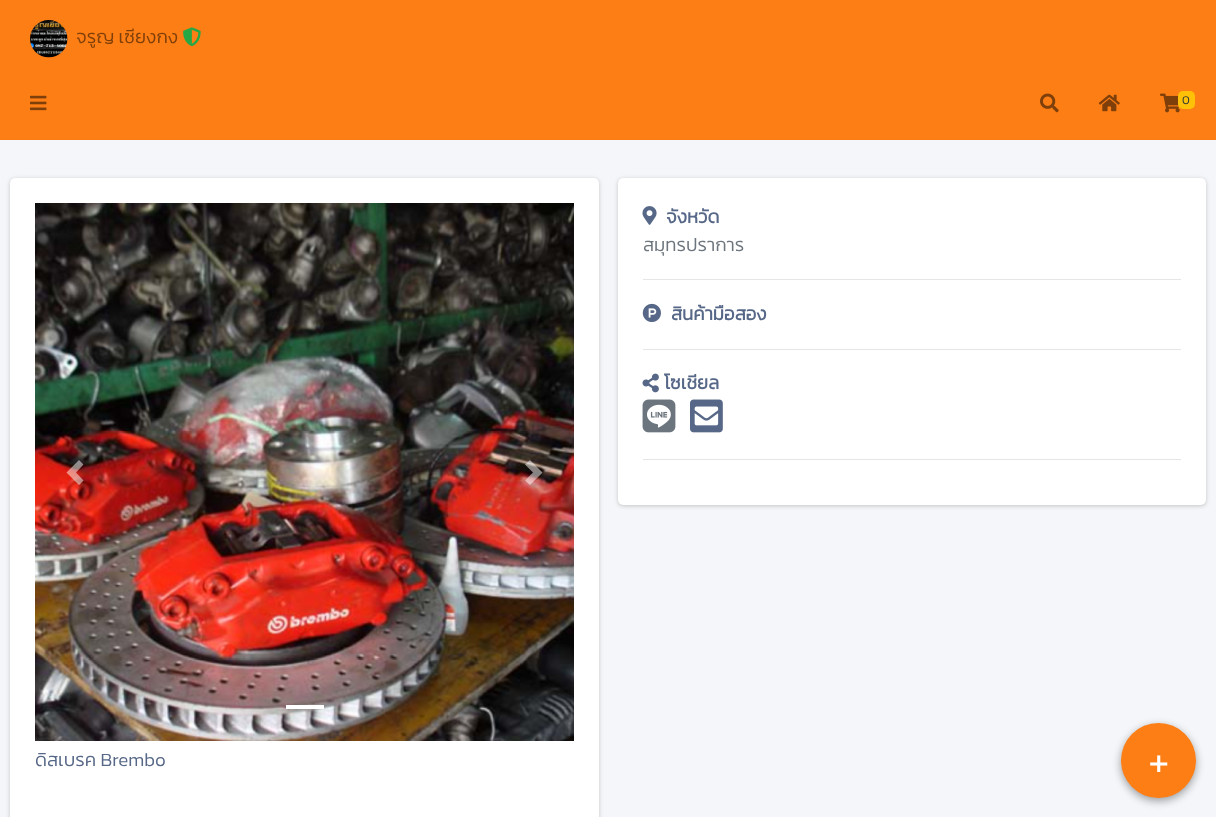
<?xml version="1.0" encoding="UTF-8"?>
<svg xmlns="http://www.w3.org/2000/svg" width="1216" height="817">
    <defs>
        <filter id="blur1" x="-50%" y="-200%" width="200%" height="500%"><feGaussianBlur stdDeviation="2"/></filter>
        <filter id="blur2" x="-50%" y="-200%" width="200%" height="500%"><feGaussianBlur stdDeviation="0.5"/></filter>
        <filter id="blur3" x="-50%" y="-200%" width="200%" height="500%"><feGaussianBlur stdDeviation="4"/></filter>
    </defs>
    <rect width="100%" height="100%" fill="#F4F6F9"/>
    <rect x="0" y="0" width="1216" height="140" fill="#FD7E14"/>
    <image x="30" y="20" width="38" height="38" href="img_01.png"/>
    <text x="76" y="43" font-family="Kanit" font-size="18.75" font-weight="300" fill="#7F3F0A">จรูญ เซียงกง</text>
    <image x="183" y="27" width="18" height="20" href="img_02.png"/>
    <image x="30" y="95" width="17" height="16" href="img_03.png"/>
    <image x="1040" y="93" width="19" height="20" href="img_04.png"/>
    <image x="1098" y="94" width="22" height="18" href="img_05.png"/>
    <image x="1160" y="93" width="20" height="20" href="img_06.png"/>
    <rect x="1178" y="91" width="17" height="18" rx="5" fill="#FFC107"/>
    <text x="1182" y="104" font-family="Kanit" font-size="12" font-weight="300" fill="#1F2D3D">0</text>
    <rect x="618" y="179" width="588" height="327" rx="5" fill="#000000" fill-opacity="0.2" filter="url(#blur1)"/>
    <rect x="618" y="178" width="588" height="327" rx="5" fill="#000000" fill-opacity="0.12" filter="url(#blur2)"/>
    <rect x="618" y="178" width="588" height="327" rx="5" fill="#FFFFFF"/>
    <image x="642" y="206" width="15" height="19" href="img_07.png"/>
    <text x="666" y="223" font-family="Kanit" font-size="18.75" font-weight="700" fill="#566787">จังหวัด</text>
    <text x="643" y="251" font-family="Kanit" font-size="18.75" font-weight="300" fill="#6C757D">สมุทรปราการ</text>
    <rect x="643" y="279" width="538" height="1" fill="#E6E6E6"/>
    <image x="642" y="303" width="19" height="19" href="img_08.png"/>
    <text x="671" y="320" font-family="Kanit" font-size="18.75" font-weight="700" fill="#566787">สินค้ามือสอง</text>
    <rect x="643" y="349" width="538" height="1" fill="#E6E6E6"/>
    <image x="642" y="373" width="17" height="20" href="img_09.png"/>
    <text x="664" y="389" font-family="Kanit" font-size="18.75" font-weight="700" fill="#566787">โซเชียล</text>
    <image x="642" y="399" width="34" height="34" href="img_10.png"/>
    <image x="690" y="399" width="33" height="34" href="img_11.png"/>
    <rect x="643" y="459" width="538" height="1" fill="#E6E6E6"/>
    <rect x="10" y="179" width="589" height="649" rx="5" fill="#000000" fill-opacity="0.2" filter="url(#blur1)"/>
    <rect x="10" y="178" width="589" height="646" rx="5" fill="#000000" fill-opacity="0.12" filter="url(#blur2)"/>
    <rect x="10" y="178" width="589" height="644" rx="5" fill="#FFFFFF"/>
    <image x="35" y="203" width="539" height="538" href="img_12.png"/>
    <path d="M 79 460 L 66.5 472.5 L 79 485 L 83.5 480.5 L 76 472.5 L 83.5 464.5 Z" fill="#FFFFFF" fill-opacity="0.5"/>
    <path d="M 530 460 L 525 464.5 L 533 472.5 L 525 480.5 L 530 485 L 542.5 472.5 Z" fill="#FFFFFF" fill-opacity="0.5"/>
    <rect x="286" y="705" width="38" height="4" fill="#FFFFFF"/>
    <text x="35" y="766" font-family="Kanit" font-size="18.75" font-weight="300" fill="#566787">ดิสเบรค Brembo</text>
    <rect x="1121" y="726" width="75" height="75" rx="37.5" fill="#000000" fill-opacity="0.23" filter="url(#blur3)"/>
    <rect x="1121" y="726" width="75" height="75" rx="37.5" fill="#000000" fill-opacity="0.16" filter="url(#blur3)"/>
    <circle cx="1158.5" cy="760.5" r="37.5" fill="#FD7E14"/>
    <text x="1148" y="776" font-family="Kanit" font-size="45" font-weight="300" fill="#FFFFFF">+</text>
</svg>
